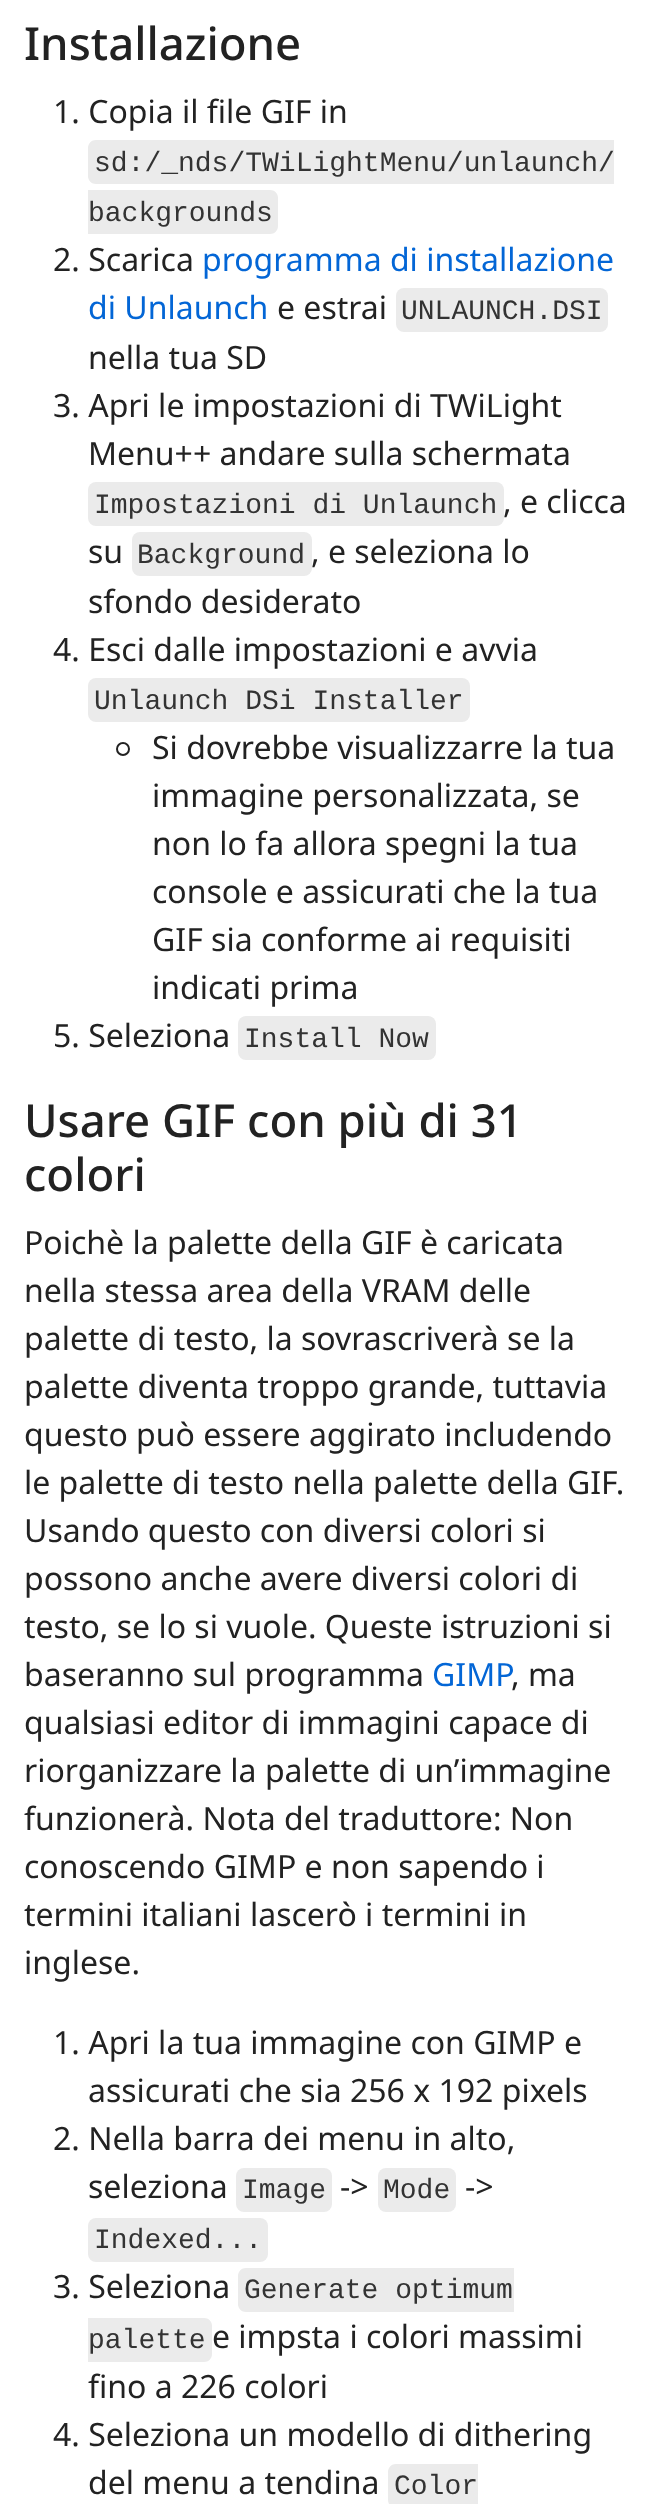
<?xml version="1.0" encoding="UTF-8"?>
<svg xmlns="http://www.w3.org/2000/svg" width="651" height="2504">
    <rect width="100%" height="100%" fill="#FFFFFF"/>
    <text x="24" y="60" font-family="Noto Sans" font-size="45.5" font-weight="500" fill="#222222">Installazione</text>
    <text x="53" y="123" font-family="Noto Sans" font-size="32" fill="#222222">1. Copia il file GIF in</text>
    <path d="M 96 140 H 614 V 184 H 96 C 91.5 184 88 180.5 88 176 V 148 C 88 143.5 91.5 140 96 140 Z" fill="#EBEBEB"/>
    <text x="94" y="171" font-family="Liberation Mono" font-size="28" fill="#333333">sd:/_nds/TWiLightMenu/unlaunch/</text>
    <path d="M 88 190 H 270 C 274.5 190 278 193.5 278 198 V 226 C 278 230.5 274.5 234 270 234 H 88 Z" fill="#EBEBEB"/>
    <text x="88" y="221" font-family="Liberation Mono" font-size="28" fill="#333333">backgrounds</text>
    <text x="53" y="271" font-family="Noto Sans" font-size="32" fill="#222222">2. Scarica</text>
    <text x="202" y="271" font-family="Noto Sans" font-size="32" fill="#0366D6">programma di installazione</text>
    <text x="88" y="319" font-family="Noto Sans" font-size="32" fill="#0366D6">di Unlaunch</text>
    <text x="277" y="319" font-family="Noto Sans" font-size="32" fill="#222222">e estrai</text>
    <rect x="396" y="288" width="212" height="44" rx="8" fill="#EBEBEB"/>
    <text x="401" y="319" font-family="Liberation Mono" font-size="28" fill="#333333">UNLAUNCH.DSI</text>
    <text x="88" y="369" font-family="Noto Sans" font-size="32" fill="#222222">nella tua SD</text>
    <text x="53" y="417" font-family="Noto Sans" font-size="32" fill="#222222">3. Apri le impostazioni di TWiLight</text>
    <text x="88" y="465" font-family="Noto Sans" font-size="32" fill="#222222">Menu++ andare sulla schermata</text>
    <rect x="88" y="482" width="416" height="44" rx="8" fill="#EBEBEB"/>
    <text x="94" y="513" font-family="Liberation Mono" font-size="28" fill="#333333">Impostazioni di Unlaunch</text>
    <text x="503" y="513" font-family="Noto Sans" font-size="32" fill="#222222">, e clicca</text>
    <text x="88" y="563" font-family="Noto Sans" font-size="32" fill="#222222">su</text>
    <rect x="132" y="532" width="180" height="44" rx="8" fill="#EBEBEB"/>
    <text x="137" y="563" font-family="Liberation Mono" font-size="28" fill="#333333">Background</text>
    <text x="311" y="563" font-family="Noto Sans" font-size="32" fill="#222222">, e seleziona lo</text>
    <text x="88" y="613" font-family="Noto Sans" font-size="32" fill="#222222">sfondo desiderato</text>
    <text x="53" y="661" font-family="Noto Sans" font-size="32" fill="#222222">4. Esci dalle impostazioni e avvia</text>
    <rect x="88" y="678" width="382" height="44" rx="8" fill="#EBEBEB"/>
    <text x="94" y="709" font-family="Liberation Mono" font-size="28" fill="#333333">Unlaunch DSi Installer</text>
    <circle cx="123" cy="749" r="6" fill="none" stroke="#222222" stroke-width="2"/>
    <text font-family="Noto Sans" font-size="32" fill="#222222">
        <tspan x="152" y="759">Si dovrebbe visualizzarre la tua</tspan>
        <tspan x="152" y="807">immagine personalizzata, se</tspan>
        <tspan x="152" y="855">non lo fa allora spegni la tua</tspan>
        <tspan x="152" y="903">console e assicurati che la tua</tspan>
        <tspan x="152" y="951">GIF sia conforme ai requisiti</tspan>
        <tspan x="152" y="999">indicati prima</tspan>
    </text>
    <text x="53" y="1047" font-family="Noto Sans" font-size="32" fill="#222222">5. Seleziona</text>
    <rect x="238" y="1016" width="198" height="44" rx="8" fill="#EBEBEB"/>
    <text x="244" y="1047" font-family="Liberation Mono" font-size="28" fill="#333333">Install Now</text>
    <text font-family="Noto Sans" font-size="45.5" font-weight="500" fill="#222222">
        <tspan x="24" y="1137">Usare GIF con più di 31</tspan>
        <tspan x="24" y="1191">colori</tspan>
    </text>
    <text font-family="Noto Sans" font-size="32" fill="#222222">
        <tspan x="24" y="1254">Poichè la palette della GIF è caricata</tspan>
        <tspan x="24" y="1302">nella stessa area della VRAM delle</tspan>
        <tspan x="24" y="1350">palette di testo, la sovrascriverà se la</tspan>
        <tspan x="24" y="1398">palette diventa troppo grande, tuttavia</tspan>
        <tspan x="24" y="1446">questo può essere aggirato includendo</tspan>
        <tspan x="24" y="1494">le palette di testo nella palette della GIF.</tspan>
        <tspan x="24" y="1542">Usando questo con diversi colori si</tspan>
        <tspan x="24" y="1590">possono anche avere diversi colori di</tspan>
        <tspan x="24" y="1638">testo, se lo si vuole. Queste istruzioni si</tspan>
        <tspan x="24" y="1686">baseranno sul programma</tspan>
    </text>
    <text x="432" y="1686" font-family="Noto Sans" font-size="32" fill="#0366D6">GIMP</text>
    <text x="511" y="1686" font-family="Noto Sans" font-size="32" fill="#222222">, ma</text>
    <text font-family="Noto Sans" font-size="32" fill="#222222">
        <tspan x="24" y="1734">qualsiasi editor di immagini capace di</tspan>
        <tspan x="24" y="1782">riorganizzare la palette di un’immagine</tspan>
        <tspan x="24" y="1830">funzionerà. Nota del traduttore: Non</tspan>
        <tspan x="24" y="1878">conoscendo GIMP e non sapendo i</tspan>
        <tspan x="24" y="1926">termini italiani lascerò i termini in</tspan>
        <tspan x="24" y="1974">inglese.</tspan>
    </text>
    <text x="53" y="2054" font-family="Noto Sans" font-size="32" fill="#222222">1. Apri la tua immagine con GIMP e</text>
    <text x="88" y="2102" font-family="Noto Sans" font-size="32" fill="#222222">assicurati che sia 256 x 192 pixels</text>
    <text x="53" y="2150" font-family="Noto Sans" font-size="32" fill="#222222">2. Nella barra dei menu in alto,</text>
    <text x="88" y="2198" font-family="Noto Sans" font-size="32" fill="#222222">seleziona</text>
    <rect x="236" y="2168" width="96" height="44" rx="8" fill="#EBEBEB"/>
    <text x="242" y="2198" font-family="Liberation Mono" font-size="28" fill="#333333">Image</text>
    <text x="340" y="2198" font-family="Noto Sans" font-size="32" fill="#222222">-&gt;</text>
    <rect x="378" y="2168" width="78" height="44" rx="8" fill="#EBEBEB"/>
    <text x="383" y="2198" font-family="Liberation Mono" font-size="28" fill="#333333">Mode</text>
    <text x="465" y="2198" font-family="Noto Sans" font-size="32" fill="#222222">-&gt;</text>
    <rect x="88" y="2218" width="180" height="44" rx="8" fill="#EBEBEB"/>
    <text x="94" y="2248" font-family="Liberation Mono" font-size="28" fill="#333333">Indexed...</text>
    <text x="53" y="2298" font-family="Noto Sans" font-size="32" fill="#222222">3. Seleziona</text>
    <path d="M 246 2268 H 514 V 2312 H 246 C 241.5 2312 238 2308.5 238 2304 V 2276 C 238 2271.5 241.5 2268 246 2268 Z" fill="#EBEBEB"/>
    <text x="244" y="2298" font-family="Liberation Mono" font-size="28" fill="#333333">Generate optimum</text>
    <path d="M 88 2318 H 204 C 208.5 2318 212 2321.5 212 2326 V 2354 C 212 2358.5 208.5 2362 204 2362 H 88 Z" fill="#EBEBEB"/>
    <text x="88" y="2348" font-family="Liberation Mono" font-size="28" fill="#333333">palette</text>
    <text x="212" y="2348" font-family="Noto Sans" font-size="32" fill="#222222">e impsta i colori massimi</text>
    <text x="88" y="2398" font-family="Noto Sans" font-size="32" fill="#222222">fino a 226 colori</text>
    <text x="53" y="2446" font-family="Noto Sans" font-size="32" fill="#222222">4. Seleziona un modello di dithering</text>
    <text x="88" y="2494" font-family="Noto Sans" font-size="32" fill="#222222">del menu a tendina</text>
    <path d="M 396 2464 H 478 V 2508 H 396 C 391.5 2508 388 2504.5 388 2500 V 2472 C 388 2467.5 391.5 2464 396 2464 Z" fill="#EBEBEB"/>
    <text x="394" y="2494" font-family="Liberation Mono" font-size="28" fill="#333333">Color</text>
</svg>
